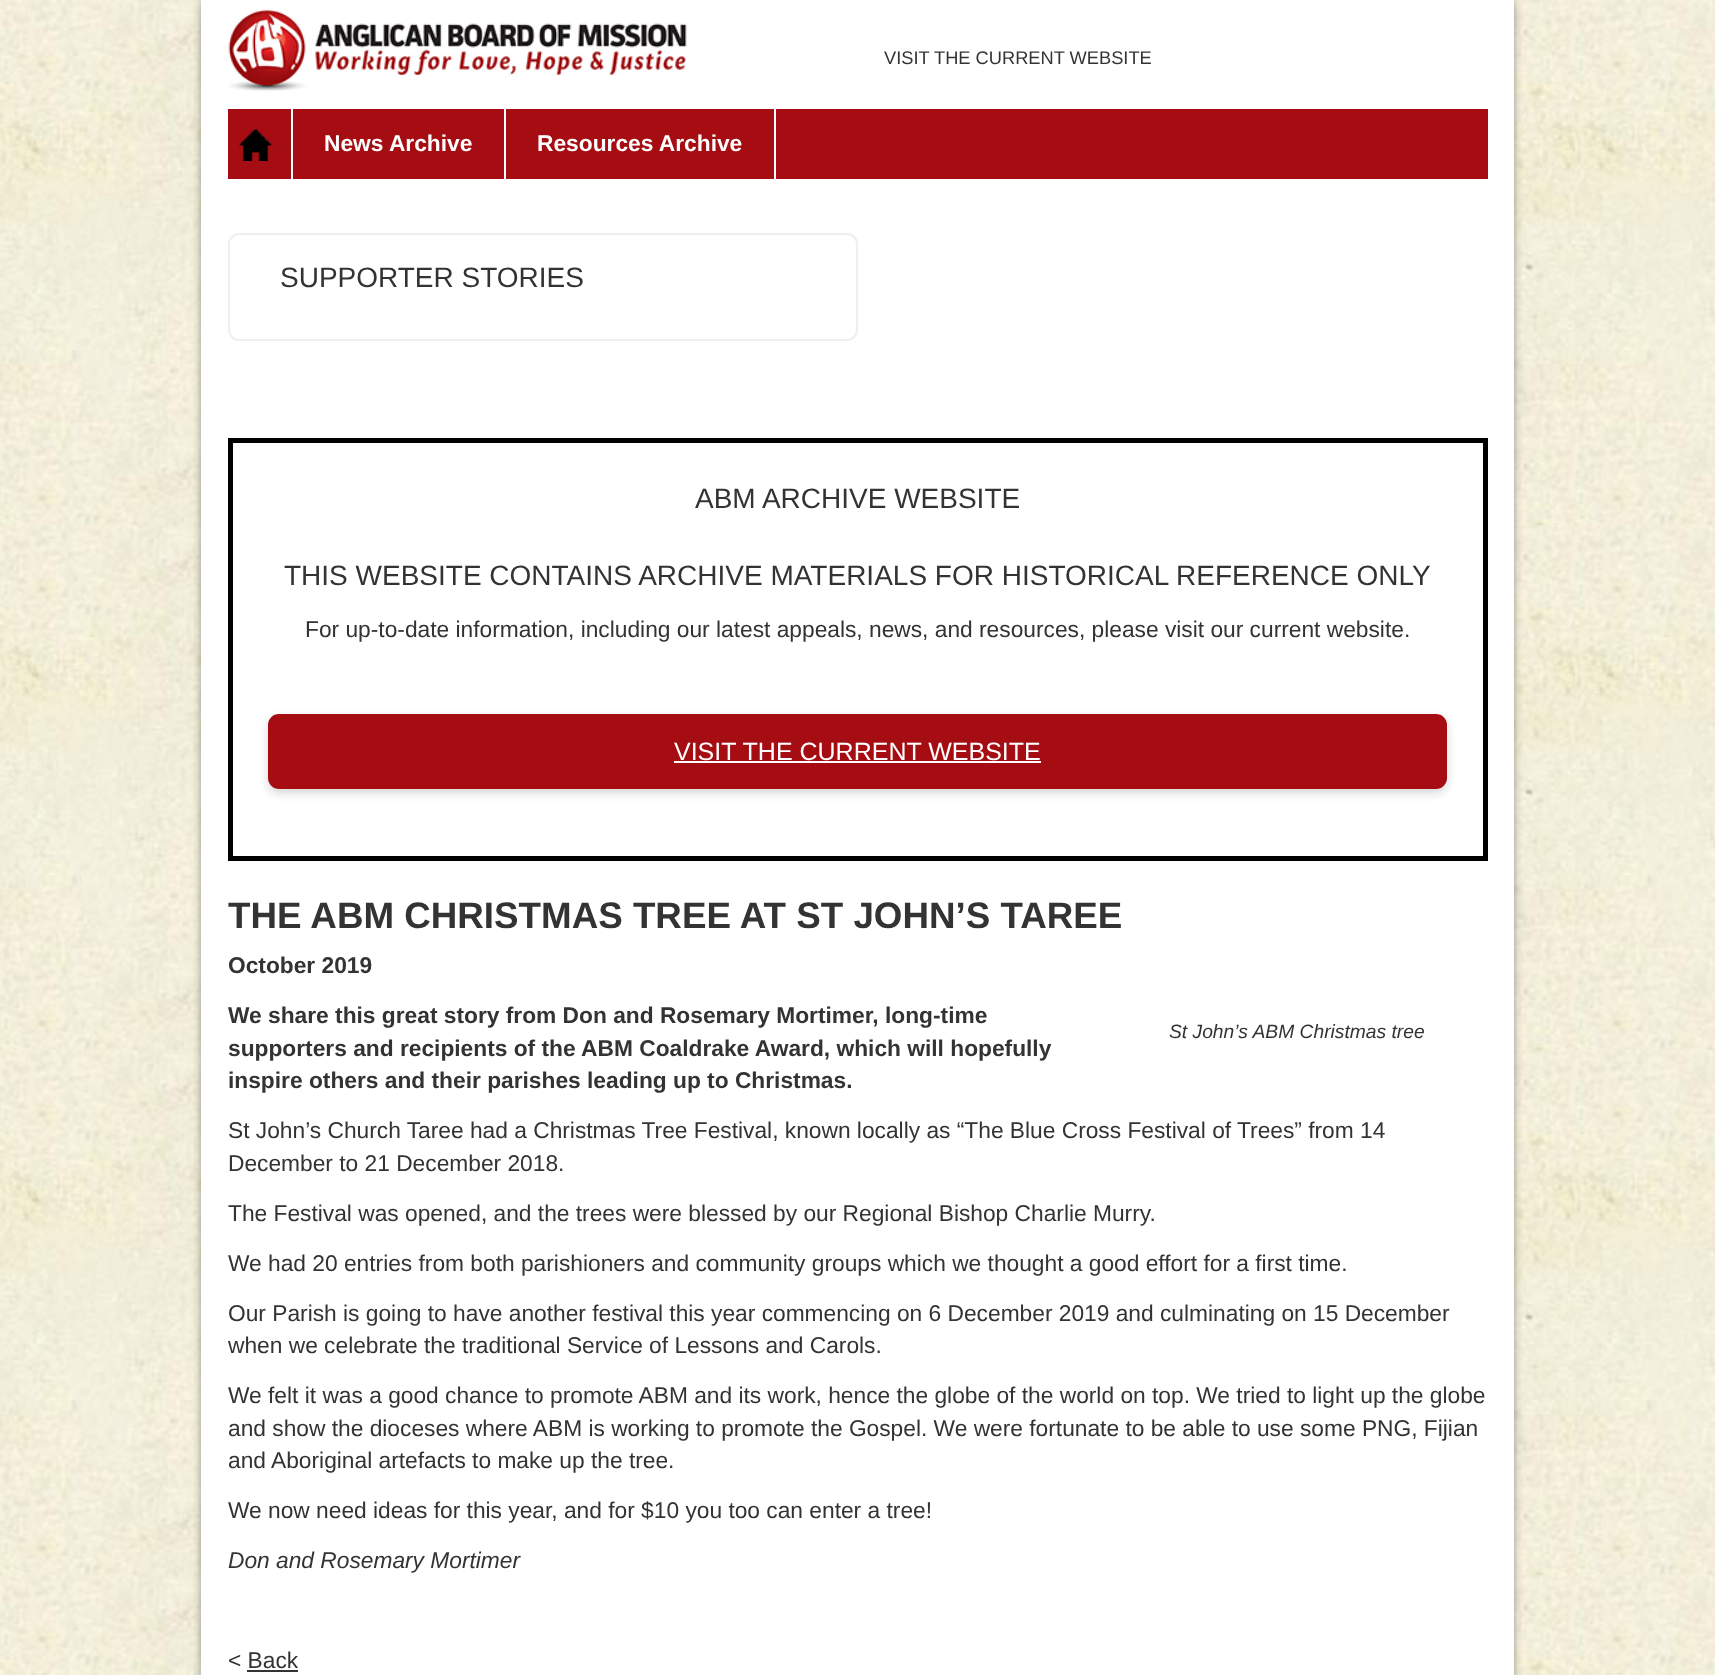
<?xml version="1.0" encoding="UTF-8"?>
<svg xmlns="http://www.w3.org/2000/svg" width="1715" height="1675">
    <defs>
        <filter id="blur1" x="-50%" y="-200%" width="200%" height="500%"><feGaussianBlur stdDeviation="4.5"/></filter>
    </defs>
    <rect width="100%" height="100%" fill="#FFFFFF"/>
    <image x="0" y="0" width="1715" height="1675" href="img_01.png"/>
    <rect x="201" y="2" width="1313" height="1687" fill="#323232" fill-opacity="0.5" filter="url(#blur1)"/>
    <rect x="201" y="0" width="1313" height="1675" fill="#FFFFFF"/>
    <image x="228" y="9" width="459" height="82" href="img_02.png"/>
    <text x="884" y="64" font-family="Liberation Sans" font-size="18.25" fill="#333333">VISIT THE CURRENT WEBSITE</text>
    <rect x="228" y="109" width="1260" height="70" fill="#A50D12"/>
    <image x="239" y="127" width="34" height="34" href="img_03.png"/>
    <rect x="291" y="109" width="2" height="70" fill="#FDFCFC"/>
    <rect x="504" y="109" width="2" height="70" fill="#FDFCFC"/>
    <text x="324" y="151" font-family="Liberation Sans" font-size="22.75" font-weight="700" fill="#FFFFFF">News Archive</text>
    <rect x="774" y="109" width="2" height="70" fill="#FDFCFC"/>
    <text x="537" y="151" font-family="Liberation Sans" font-size="22.75" font-weight="700" fill="#FFFFFF">Resources Archive</text>
    <rect x="229" y="234" width="628" height="106" rx="10" fill="none" stroke="#EFEFEF" stroke-width="2"/>
    <text x="280" y="287" font-family="Liberation Sans" font-size="28" fill="#333333">SUPPORTER STORIES</text>
    <rect x="230.5" y="440.5" width="1255" height="418" fill="none" stroke="#000000" stroke-width="5"/>
    <text x="695" y="508" font-family="Liberation Sans" font-size="28" fill="#333333">ABM ARCHIVE WEBSITE</text>
    <text x="284" y="585" font-family="Liberation Sans" font-size="28" fill="#333333">THIS WEBSITE CONTAINS ARCHIVE MATERIALS FOR HISTORICAL REFERENCE ONLY</text>
    <text x="305" y="637" font-family="Liberation Sans" font-size="22.75" fill="#333333">For up-to-date information, including our latest appeals, news, and resources, please visit our current website.</text>
    <rect x="268" y="718" width="1179" height="75" rx="11" fill="#323232" fill-opacity="0.2" filter="url(#blur1)"/>
    <rect x="269" y="715" width="1177" height="73" rx="10" fill="#A50D12" stroke="#A50D12" stroke-width="2"/>
    <text x="674" y="760" font-family="Liberation Sans" font-size="25" fill="#FFFFFF">VISIT THE CURRENT WEBSITE</text>
    <rect x="674" y="761" width="367" height="2" fill="#FFFFFF"/>
    <text x="228" y="928" font-family="Liberation Sans" font-size="36.75" font-weight="700" fill="#333333">THE ABM CHRISTMAS TREE AT ST JOHN’S TAREE</text>
    <text x="228" y="973" font-family="Liberation Sans" font-size="22.75" font-weight="700" fill="#333333">October 2019</text>
    <text font-family="Liberation Sans" font-size="22.75" font-weight="700" fill="#333333">
        <tspan x="228" y="1023">We share this great story from Don and Rosemary Mortimer, long-time</tspan>
        <tspan x="228" y="1056">supporters and recipients of the ABM Coaldrake Award, which will hopefully</tspan>
        <tspan x="228" y="1088">inspire others and their parishes leading up to Christmas.</tspan>
    </text>
    <text x="1169" y="1038" font-family="Liberation Sans" font-size="19.25" font-style="italic" fill="#333333">St John’s ABM Christmas tree</text>
    <text font-family="Liberation Sans" font-size="22.75" fill="#333333">
        <tspan x="228" y="1138">St John’s Church Taree had a Christmas Tree Festival, known locally as “The Blue Cross Festival of Trees” from 14</tspan>
        <tspan x="228" y="1171">December to 21 December 2018.</tspan>
    </text>
    <text x="228" y="1221" font-family="Liberation Sans" font-size="22.75" fill="#333333">The Festival was opened, and the trees were blessed by our Regional Bishop Charlie Murry.</text>
    <text x="228" y="1271" font-family="Liberation Sans" font-size="22.75" fill="#333333">We had 20 entries from both parishioners and community groups which we thought a good effort for a first time.</text>
    <text font-family="Liberation Sans" font-size="22.75" fill="#333333">
        <tspan x="228" y="1321">Our Parish is going to have another festival this year commencing on 6 December 2019 and culminating on 15 December</tspan>
        <tspan x="228" y="1353">when we celebrate the traditional Service of Lessons and Carols.</tspan>
    </text>
    <text font-family="Liberation Sans" font-size="22.75" fill="#333333">
        <tspan x="228" y="1403">We felt it was a good chance to promote ABM and its work, hence the globe of the world on top. We tried to light up the globe</tspan>
        <tspan x="228" y="1436">and show the dioceses where ABM is working to promote the Gospel. We were fortunate to be able to use some PNG, Fijian</tspan>
        <tspan x="228" y="1468">and Aboriginal artefacts to make up the tree.</tspan>
    </text>
    <text x="228" y="1518" font-family="Liberation Sans" font-size="22.75" fill="#333333">We now need ideas for this year, and for $10 you too can enter a tree!</text>
    <text x="228" y="1568" font-family="Liberation Sans" font-size="22.75" font-style="italic" fill="#333333">Don and Rosemary Mortimer</text>
    <text x="228" y="1668" font-family="Liberation Sans" font-size="22.75" fill="#333333">&lt; Back</text>
    <rect x="247" y="1670" width="51" height="2" fill="#333333"/>
</svg>
